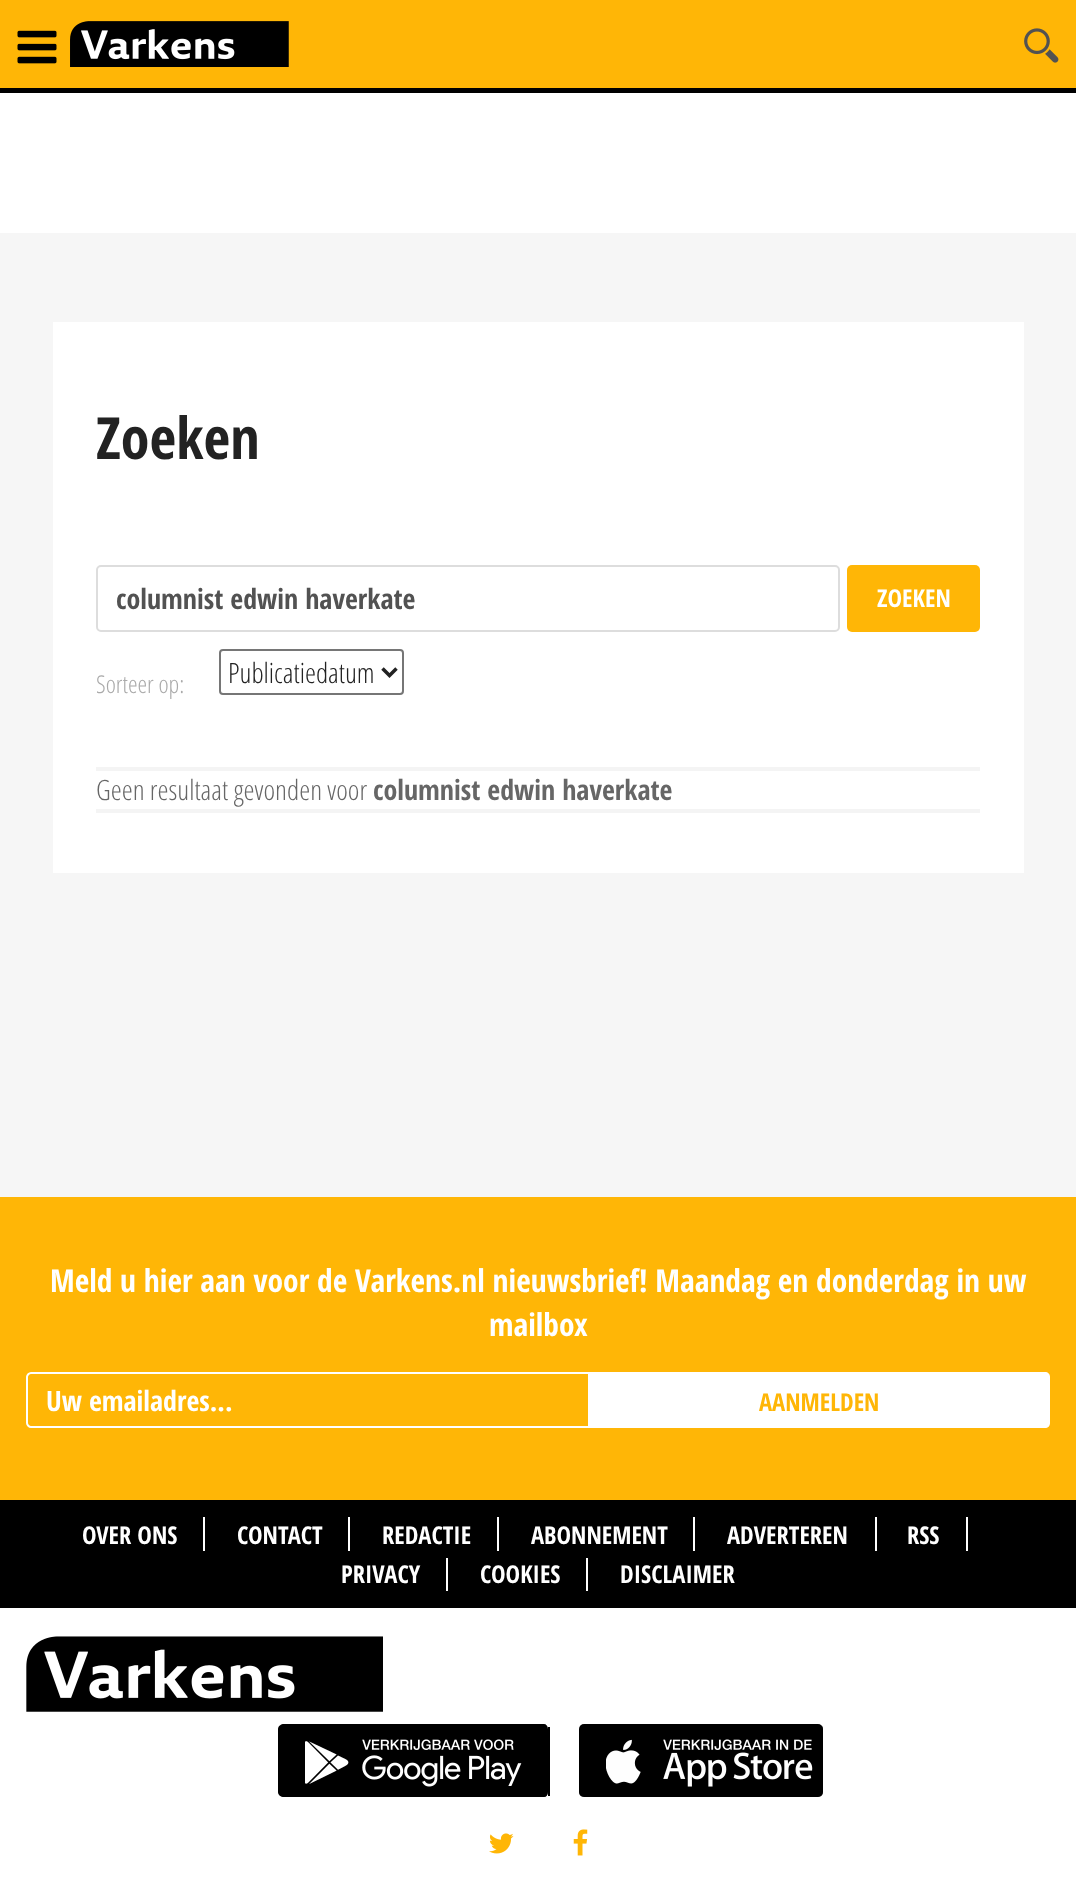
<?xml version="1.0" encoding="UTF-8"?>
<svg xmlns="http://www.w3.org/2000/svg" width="1076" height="1892">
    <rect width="100%" height="100%" fill="#F6F6F6"/>
    <rect x="0" y="93" width="1076" height="140" fill="#FFFFFF"/>
    <rect x="0" y="0" width="1076" height="88" fill="#FFB606"/>
    <rect x="0" y="88" width="1076" height="5" fill="#000000"/>
    <image x="17" y="30" width="40" height="34" href="img_01.png"/>
    <image x="70" y="21" width="219" height="46" href="img_02.png"/>
    <image x="1024" y="28" width="35" height="35" href="img_03.png"/>
    <rect x="53" y="322" width="971" height="551" fill="#FFFFFF"/>
    <text x="96" y="459" font-family="Open Sans Condensed" font-size="58" font-weight="700" fill="#222222">Zoeken</text>
    <rect x="97" y="566" width="742" height="65" rx="4" fill="none" stroke="#DDDDDD" stroke-width="2"/>
    <text x="116" y="609" font-family="Open Sans Condensed" font-size="28" font-weight="700" fill="#525252">columnist edwin haverkate</text>
    <rect x="847" y="565" width="133" height="67" rx="5" fill="#FFB606"/>
    <text x="877" y="607" font-family="Open Sans Condensed" font-size="24.5" font-weight="700" fill="#FFFFFF">ZOEKEN</text>
    <rect x="220" y="650" width="183" height="44" rx="3" fill="none" stroke="#767676" stroke-width="2"/>
    <path d="M 382.5 668.5 L 389.5 675.5 L 396.5 668.5" fill="none" stroke="#222222" stroke-width="3.5"/>
    <text x="228" y="683" font-family="Open Sans Condensed" font-size="28" font-weight="300" fill="#222222">Publicatiedatum</text>
    <text x="96" y="693" font-family="Open Sans Condensed" font-size="24.5" font-weight="300" fill="#AAAAAA">Sorteer op:</text>
    <rect x="96" y="809" width="884" height="4" fill="#F4F4F4"/>
    <rect x="96" y="767" width="884" height="4" fill="#F4F4F4"/>
    <text x="96" y="800" font-family="Open Sans Condensed" font-size="28" font-weight="300" fill="#666666">Geen resultaat gevonden voor</text>
    <text x="373" y="800" font-family="Open Sans Condensed" font-size="28" font-weight="700" fill="#666666">columnist edwin haverkate</text>
    <rect x="0" y="1197" width="1076" height="303" fill="#FFB606"/>
    <text x="50" y="1292" font-family="Open Sans Condensed" font-size="31.5" font-weight="700" fill="#FFFFFF">Meld u hier aan voor de Varkens.nl nieuwsbrief! Maandag en donderdag in uw</text>
    <text x="489" y="1336" font-family="Open Sans Condensed" font-size="31.5" font-weight="700" fill="#FFFFFF">mailbox</text>
    <path d="M 31 1373 H 589 V 1427 H 31 C 29 1427 27 1425 27 1423 V 1377 C 27 1375 29 1373 31 1373 Z" fill="none" stroke="#FFFFFF" stroke-width="2"/>
    <text x="46" y="1411" font-family="Open Sans Condensed" font-size="28" font-weight="700" fill="#FFFFFF">Uw emailadres...</text>
    <path d="M 590 1372 H 1045 C 1048 1372 1050 1374 1050 1377 V 1423 C 1050 1426 1048 1428 1045 1428 H 590 Z" fill="#FFFFFF"/>
    <text x="759" y="1411" font-family="Open Sans Condensed" font-size="24.5" font-weight="700" fill="#FFB606">AANMELDEN</text>
    <rect x="0" y="1500" width="1076" height="108" fill="#000000"/>
    <text x="82" y="1544" font-family="Open Sans Condensed" font-size="24.5" font-weight="700" fill="#FFFFFF">OVER ONS</text>
    <rect x="203" y="1517" width="2" height="34" fill="#FFFFFF"/>
    <text x="237" y="1544" font-family="Open Sans Condensed" font-size="24.5" font-weight="700" fill="#FFFFFF">CONTACT</text>
    <rect x="348" y="1517" width="2" height="34" fill="#FFFFFF"/>
    <text x="382" y="1544" font-family="Open Sans Condensed" font-size="24.5" font-weight="700" fill="#FFFFFF">REDACTIE</text>
    <rect x="497" y="1517" width="2" height="34" fill="#FFFFFF"/>
    <text x="531" y="1544" font-family="Open Sans Condensed" font-size="24.5" font-weight="700" fill="#FFFFFF">ABONNEMENT</text>
    <rect x="693" y="1517" width="2" height="34" fill="#FFFFFF"/>
    <text x="727" y="1544" font-family="Open Sans Condensed" font-size="24.5" font-weight="700" fill="#FFFFFF">ADVERTEREN</text>
    <rect x="875" y="1517" width="2" height="34" fill="#FFFFFF"/>
    <text x="907" y="1544" font-family="Open Sans Condensed" font-size="24.5" font-weight="700" fill="#FFFFFF">RSS</text>
    <rect x="966" y="1517" width="2" height="34" fill="#FFFFFF"/>
    <text x="341" y="1583" font-family="Open Sans Condensed" font-size="24.5" font-weight="700" fill="#FFFFFF">PRIVACY</text>
    <rect x="446" y="1558" width="2" height="33" fill="#FFFFFF"/>
    <text x="480" y="1583" font-family="Open Sans Condensed" font-size="24.5" font-weight="700" fill="#FFFFFF">COOKIES</text>
    <rect x="586" y="1558" width="2" height="33" fill="#FFFFFF"/>
    <text x="620" y="1583" font-family="Open Sans Condensed" font-size="24.5" font-weight="700" fill="#FFFFFF">DISCLAIMER</text>
    <rect x="0" y="1608" width="1076" height="284" fill="#FFFFFF"/>
    <image x="26" y="1636" width="357" height="76" href="img_04.png"/>
    <path d="M 284 1724 H 544 C 546 1724 548 1726 548 1729 V 1792 C 548 1795 546 1797 544 1797 H 284 C 281 1797 278 1795 278 1792 V 1729 C 278 1726 281 1724 284 1724 Z" fill="#000000"/>
    <path d="M 278 1790 C 278 1793 279 1797 284 1797 H 544 C 548 1797 548 1792 548 1790 C 547 1792 546 1794 544 1794 H 284 C 282 1794 279 1792 278 1790 Z" fill="#000000" fill-opacity="0.5"/>
    <rect x="548" y="1727" width="2" height="69" fill="#000000"/>
    <image x="305" y="1739" width="217" height="48" href="img_05.png"/>
    <rect x="579" y="1724" width="244" height="73" rx="5" fill="#000000"/>
    <path d="M 579 1788 V 1792 C 579 1795 581 1797 584 1797 H 818 C 821 1797 823 1795 823 1792 V 1729 C 823 1728 823 1727 822 1726 V 1788 C 822 1791 820 1794 817 1794 H 584 C 582 1794 579 1791 579 1788 Z" fill="#000000" fill-opacity="0.5"/>
    <image x="606" y="1739" width="207" height="48" href="img_06.png"/>
    <image x="489" y="1833" width="25" height="21" href="img_07.png"/>
    <image x="573" y="1829" width="15" height="27" href="img_08.png"/>
</svg>
